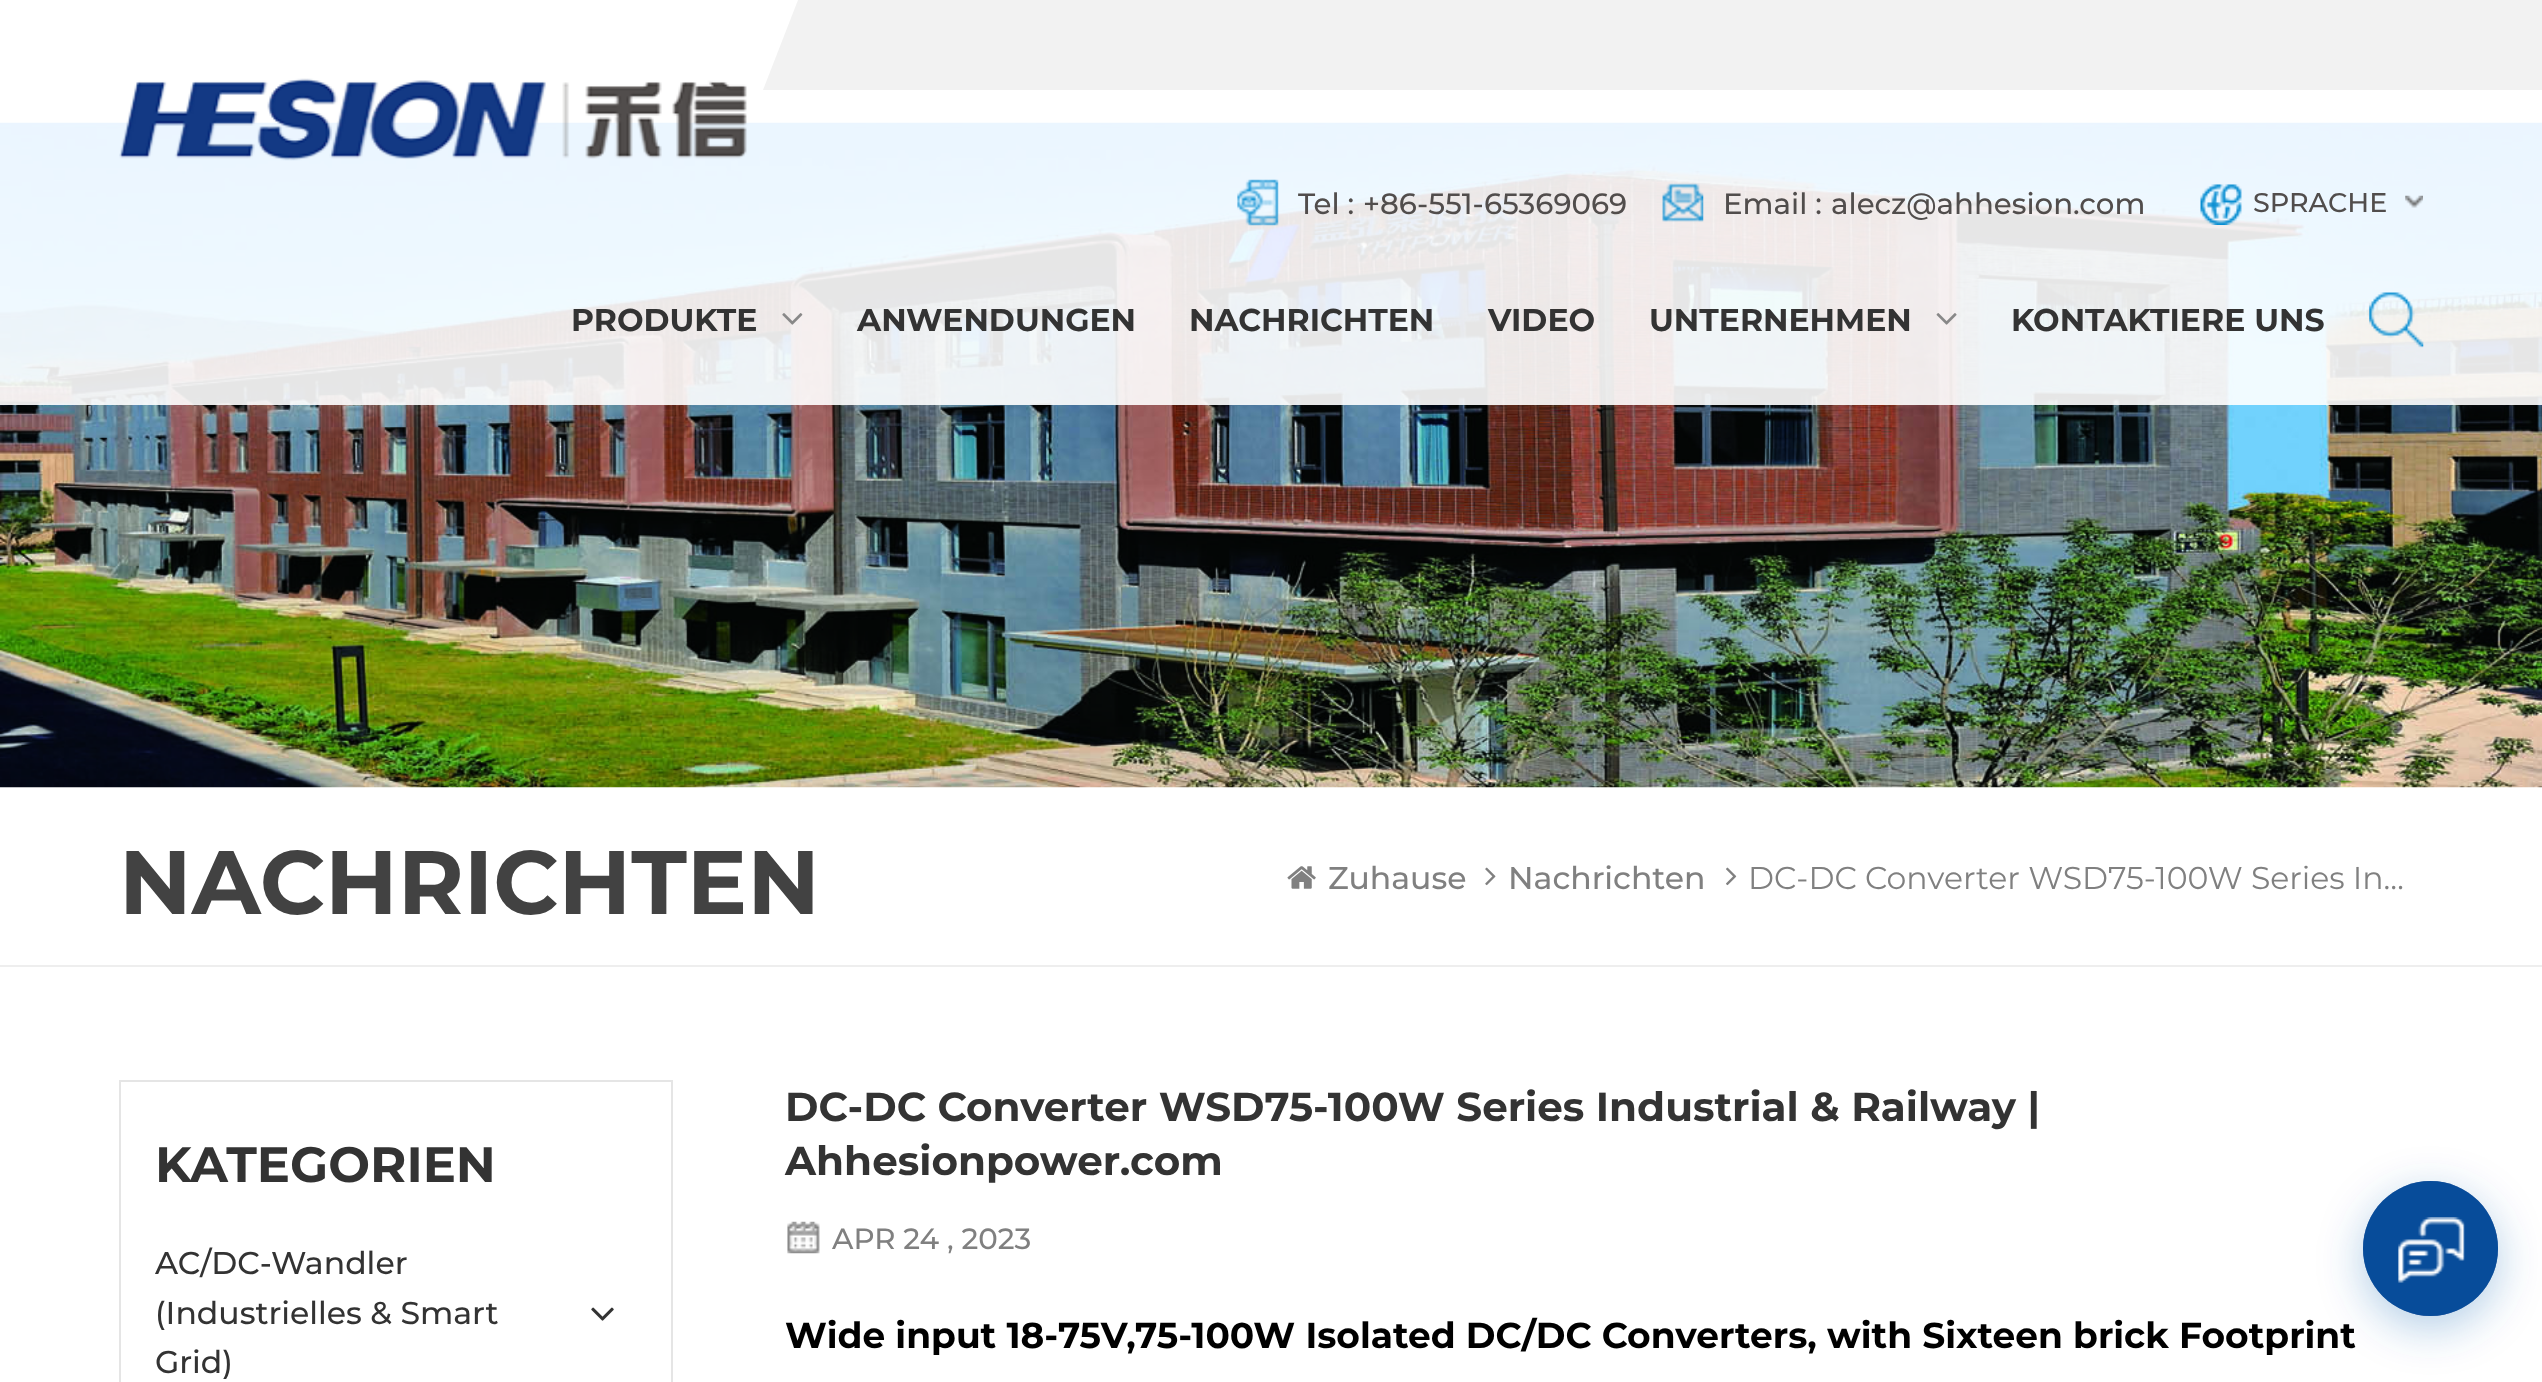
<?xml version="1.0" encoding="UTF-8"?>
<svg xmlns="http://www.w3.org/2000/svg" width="2542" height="1382">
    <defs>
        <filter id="blur1" x="-50%" y="-200%" width="200%" height="500%"><feGaussianBlur stdDeviation="22.5"/></filter>
    </defs>
    <rect width="100%" height="100%" fill="#FFFFFF"/>
    <image x="0" y="117" width="2542" height="671" href="img_01.png"/>
    <rect x="0" y="117" width="2542" height="288" fill="#FFFFFF" fill-opacity="0.9"/>
    <path d="M 798 0 L 763 90 H 2542 V 0 Z" fill="#F2F2F2"/>
    <image x="119" y="78" width="628" height="83" href="img_02.png"/>
    <image x="1237" y="179" width="42" height="47" href="img_03.png"/>
    <text x="1298" y="214" font-family="Montserrat" font-size="29.25" font-weight="500" fill="#514D4C">Tel :</text>
    <text x="1363" y="214" font-family="Montserrat" font-size="29.25" font-weight="500" fill="#514D4C">+86-551-65369069</text>
    <image x="1662" y="183" width="42" height="39" href="img_04.png"/>
    <text x="1723" y="214" font-family="Montserrat" font-size="29.25" font-weight="500" fill="#514D4C">Email :</text>
    <text x="1831" y="214" font-family="Montserrat" font-size="29.25" font-weight="500" fill="#514D4C">alecz@ahhesion.com</text>
    <image x="2405" y="195" width="18" height="13" href="img_05.png"/>
    <image x="2200" y="184" width="42" height="41" href="img_06.png"/>
    <text x="2253" y="212" font-family="Montserrat" font-size="27" font-weight="500" fill="#514D4C">SPRACHE</text>
    <text x="571" y="331" font-family="Montserrat" font-size="31.5" font-weight="700" fill="#333333">PRODUKTE</text>
    <image x="782" y="313" width="21" height="12" href="img_07.png"/>
    <text x="857" y="331" font-family="Montserrat" font-size="31.5" font-weight="700" fill="#333333">ANWENDUNGEN</text>
    <text x="1189" y="331" font-family="Montserrat" font-size="31.5" font-weight="700" fill="#333333">NACHRICHTEN</text>
    <text x="1488" y="331" font-family="Montserrat" font-size="31.5" font-weight="700" fill="#333333">VIDEO</text>
    <text x="1649" y="331" font-family="Montserrat" font-size="31.5" font-weight="700" fill="#333333">UNTERNEHMEN</text>
    <image x="1936" y="313" width="21" height="12" href="img_08.png"/>
    <text x="2011" y="331" font-family="Montserrat" font-size="31.5" font-weight="700" fill="#333333">KONTAKTIERE UNS</text>
    <image x="2369" y="292" width="55" height="56" href="img_09.png"/>
    <rect x="0" y="965" width="2542" height="2" fill="#EEEEEE"/>
    <text x="119" y="914" font-family="Montserrat" font-size="90" font-weight="700" fill="#424242">NACHRICHTEN</text>
    <image x="1287" y="866" width="29" height="23" href="img_10.png"/>
    <text x="1328" y="889" font-family="Montserrat" font-size="31.5" font-weight="500" fill="#808080">Zuhause</text>
    <image x="1485" y="867" width="11" height="19" href="img_11.png"/>
    <text x="1508" y="889" font-family="Montserrat" font-size="31.5" font-weight="500" fill="#808080">Nachrichten</text>
    <image x="1726" y="867" width="11" height="19" href="img_12.png"/>
    <text x="1748" y="889" font-family="Montserrat" font-size="31.5" fill="#808080">DC-DC Converter WSD75-100W Series In…</text>
    <rect x="120" y="1081" width="552" height="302" fill="none" stroke="#E5E5E5" stroke-width="2"/>
    <text x="155" y="1182" font-family="Montserrat" font-size="49.5" font-weight="700" fill="#333333">KATEGORIEN</text>
    <text font-family="Montserrat" font-size="31.5" font-weight="500" fill="#333333">
        <tspan x="155" y="1274">AC/DC-Wandler</tspan>
        <tspan x="155" y="1324">(Industrielles &amp; Smart</tspan>
        <tspan x="155" y="1373">Grid)</tspan>
    </text>
    <image x="591" y="1307" width="23" height="14" href="img_13.png"/>
    <text font-family="Montserrat" font-size="40.5" font-weight="700" fill="#333333">
        <tspan x="785" y="1121">DC-DC Converter WSD75-100W Series Industrial &amp; Railway |</tspan>
        <tspan x="785" y="1175">Ahhesionpower.com</tspan>
    </text>
    <image x="787" y="1221" width="33" height="33" href="img_14.png"/>
    <text x="832" y="1249" font-family="Montserrat" font-size="29.25" font-weight="500" fill="#808080">APR 24 , 2023</text>
    <text x="785" y="1348" font-family="Montserrat" font-size="36" font-weight="700" fill="#000000">Wide input 18-75V,</text>
    <text x="1135" y="1348" font-family="Montserrat" font-size="36" font-weight="700" fill="#000000">75-100W Isolated DC/DC Converters, with Sixteen brick Footprint</text>
    <rect x="2363" y="1193" width="135" height="135" rx="67.5" fill="#005BAC" fill-opacity="0.3" filter="url(#blur1)"/>
    <circle cx="2430.5" cy="1248.5" r="67.5" fill="#133984"/>
    <circle cx="2430.5" cy="1248.5" r="67.5" fill="#005BAC" fill-opacity="0.25"/>
    <circle cx="2430.5" cy="1248.5" r="67.5" fill="#005BAC" fill-opacity="0.25"/>
    <circle cx="2430.5" cy="1248.5" r="67.5" fill="#005BAC" fill-opacity="0.25"/>
    <image x="2398" y="1217" width="67" height="66" href="img_15.png"/>
</svg>
